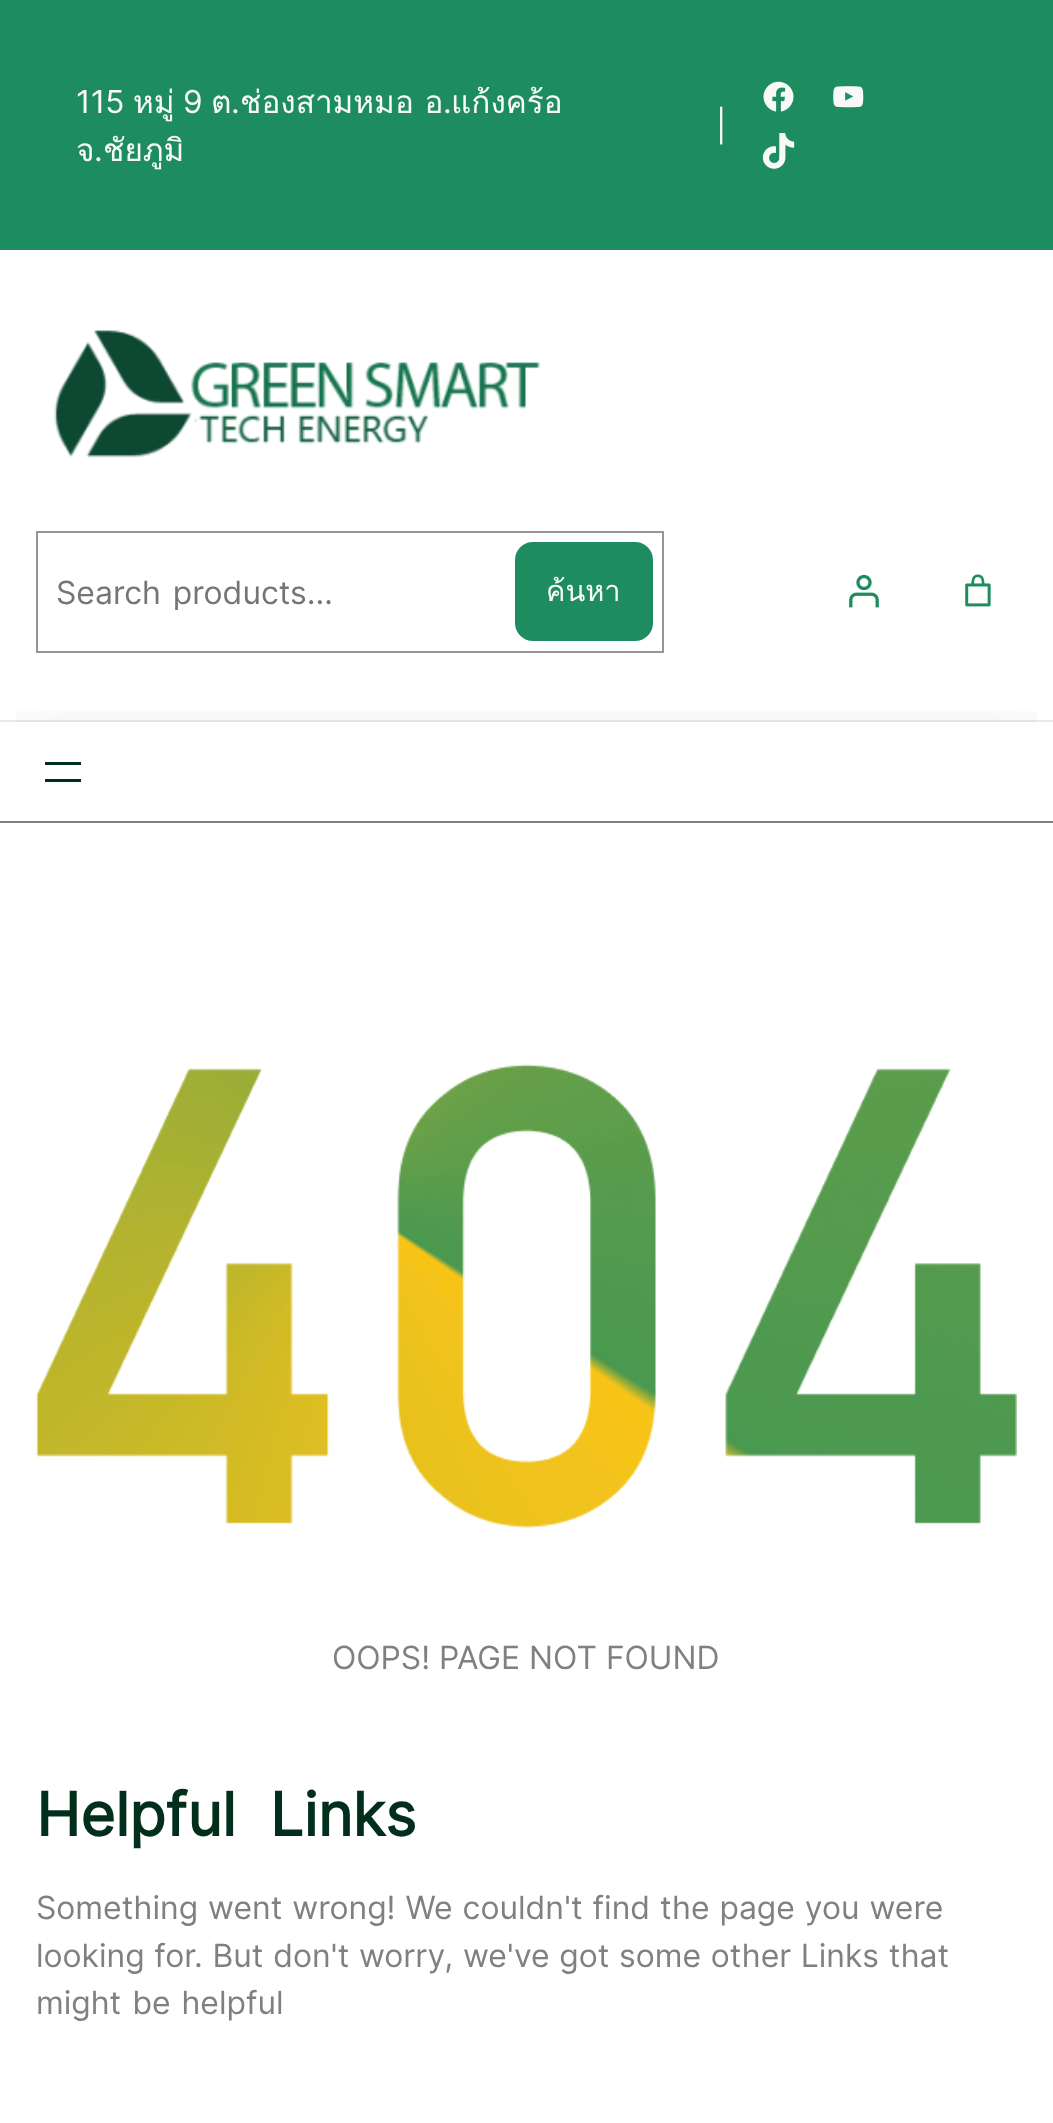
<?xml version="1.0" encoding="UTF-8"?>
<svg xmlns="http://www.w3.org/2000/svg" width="1053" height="2123">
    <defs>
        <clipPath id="clip1"><rect x="56" y="572" width="396" height="38"/></clipPath>
        <clipPath id="clip2"><rect x="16" y="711" width="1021" height="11"/></clipPath>
        <filter id="blur1" x="-50%" y="-200%" width="200%" height="500%"><feGaussianBlur stdDeviation="34"/></filter>
    </defs>
    <rect width="100%" height="100%" fill="#FFFFFF"/>
    <rect x="0" y="0" width="1053" height="250" fill="#1D8D60"/>
    <text x="76" y="113" font-family="Inter" font-size="31.5" fill="#F9F9F9">115</text>
    <text x="133" y="113" font-family="Loma" font-size="31.5" fill="#F9F9F9">หมู่</text>
    <text x="183" y="113" font-family="Inter" font-size="31.5" fill="#F9F9F9">9</text>
    <text x="211" y="113" font-family="Loma" font-size="31.5" fill="#F9F9F9">ต</text>
    <text x="231" y="113" font-family="Inter" font-size="31.5" fill="#F9F9F9">.</text>
    <text x="240" y="113" font-family="Loma" font-size="31.5" fill="#F9F9F9">ช่องสามหมอ อ</text>
    <text x="451" y="113" font-family="Loma" font-size="31.5" fill="#F9F9F9">แก้งคร้อ</text>
    <text x="443" y="113" font-family="Inter" font-size="31.5" fill="#F9F9F9">.</text>
    <text x="76" y="161" font-family="Loma" font-size="31.5" fill="#F9F9F9">จ</text>
    <text x="94" y="161" font-family="Inter" font-size="31.5" fill="#F9F9F9">.</text>
    <text x="103" y="161" font-family="Loma" font-size="31.5" fill="#F9F9F9">ชัยภูมิ</text>
    <text x="716" y="137" font-family="Inter" font-size="31.5" fill="#F9F9F9">|</text>
    <image x="763" y="81" width="31" height="31" href="img_01.png"/>
    <image x="833" y="86" width="31" height="22" href="img_02.png"/>
    <image x="762" y="133" width="33" height="36" href="img_03.png"/>
    <rect x="0" y="720" width="1053" height="2" fill="#E6EAE8"/>
    <image x="54" y="330" width="487" height="128" href="img_04.png"/>
    <rect x="37" y="532" width="626" height="120" fill="none" stroke="#949494" stroke-width="2"/>
    <g clip-path="url(#clip1)">
        <text x="56" y="604" word-spacing="3" font-family="Inter" font-size="31.9" fill="#757575">Search products…</text>
    </g>
    <rect x="515" y="542" width="138" height="99" rx="18" fill="#1D8D60"/>
    <text x="546" y="601" font-family="Loma" font-size="29" fill="#F9F9F9">ค้นหา</text>
    <image x="849" y="574" width="30" height="34" href="img_05.png"/>
    <image x="965" y="574" width="26" height="33" href="img_06.png"/>
    <g clip-path="url(#clip2)">
        <rect x="0" y="740" width="1053" height="99" fill="#021B0B" fill-opacity="0.1" filter="url(#blur1)"/>
    </g>
    <rect x="45" y="762" width="36" height="3" fill="#022E1C"/>
    <rect x="45" y="779" width="36" height="3" fill="#022E1C"/>
    <rect x="0" y="823" width="1053" height="59" fill="#FFFFFF"/>
    <rect x="0" y="821" width="1053" height="2" fill="#808080"/>
    <image x="36" y="1064" width="981" height="464" href="img_07.png"/>
    <text x="332" y="1669" font-family="Inter" font-size="31.9" fill="#808080">OOPS! PAGE NOT FOUND</text>
    <text x="36" y="1836" word-spacing="17" font-family="Inter" font-size="59.75" font-weight="700" fill="#022E1C">Helpful Links</text>
    <text font-family="Inter" font-size="31.9" fill="#808080">
        <tspan x="36" y="1919" word-spacing="1">Something went wrong! We couldn't find the page you were</tspan>
        <tspan x="36" y="1967" word-spacing="0.75">looking for. But don't worry, we've got some other Links that</tspan>
        <tspan x="36" y="2014" word-spacing="2">might be helpful</tspan>
    </text>
</svg>
